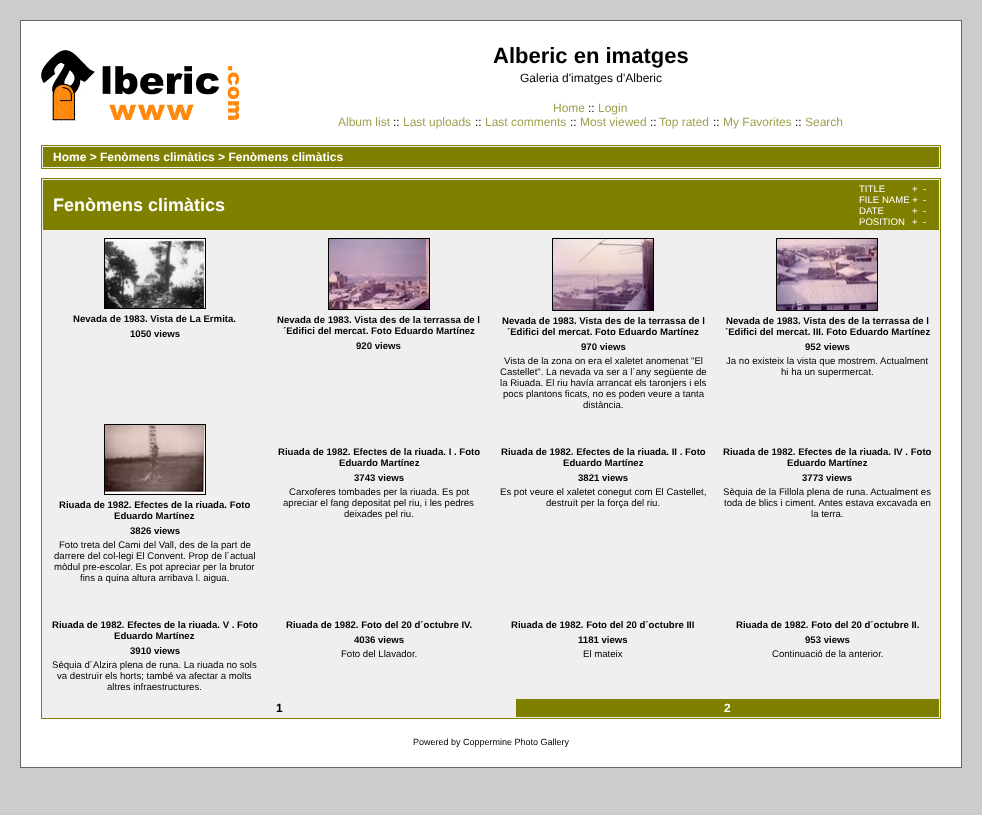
<?xml version="1.0" encoding="UTF-8"?>
<svg xmlns="http://www.w3.org/2000/svg" width="982" height="815">
    <rect width="100%" height="100%" fill="#CCCCCC"/>
    <rect x="20.5" y="20.5" width="941" height="747" fill="#FFFFFF" stroke="#666666"/>
    <image x="41" y="50" width="199" height="71" href="img_01.png"/>
    <text x="493" y="63" font-family="Liberation Sans" font-size="22" font-weight="700" fill="#000000">Alberic en imatges</text>
    <text x="520" y="82" font-family="Liberation Sans" font-size="12" fill="#000000">Galeria d'imatges d'Alberic</text>
    <text x="553" y="112" font-family="Liberation Sans" font-size="12" fill="#A0A050">Home</text>
    <text x="588" y="112" font-family="Liberation Sans" font-size="12" fill="#000000">::</text>
    <text x="598" y="112" font-family="Liberation Sans" font-size="12" fill="#A0A050">Login</text>
    <text x="338" y="126" font-family="Liberation Sans" font-size="12" fill="#A0A050">Album list</text>
    <text x="393" y="126" font-family="Liberation Sans" font-size="12" fill="#000000">::</text>
    <text x="403" y="126" font-family="Liberation Sans" font-size="12" fill="#A0A050">Last uploads</text>
    <text x="475" y="126" font-family="Liberation Sans" font-size="12" fill="#000000">::</text>
    <text x="485" y="126" font-family="Liberation Sans" font-size="12" fill="#A0A050">Last comments</text>
    <text x="570" y="126" font-family="Liberation Sans" font-size="12" fill="#000000">::</text>
    <text x="580" y="126" font-family="Liberation Sans" font-size="12" fill="#A0A050">Most viewed</text>
    <text x="650" y="126" font-family="Liberation Sans" font-size="12" fill="#000000">::</text>
    <text x="659" y="126" font-family="Liberation Sans" font-size="12" fill="#A0A050">Top rated</text>
    <text x="713" y="126" font-family="Liberation Sans" font-size="12" fill="#000000">::</text>
    <text x="723" y="126" font-family="Liberation Sans" font-size="12" fill="#A0A050">My Favorites</text>
    <text x="795" y="126" font-family="Liberation Sans" font-size="12" fill="#000000">::</text>
    <text x="805" y="126" font-family="Liberation Sans" font-size="12" fill="#A0A050">Search</text>
    <rect x="41.5" y="145.5" width="899" height="23" fill="#EFEFEF" stroke="#808000"/>
    <rect x="43" y="147" width="896" height="20" fill="#808000"/>
    <text x="53" y="161" font-family="Liberation Sans" font-size="12" font-weight="700" fill="#FFFFFF">Home &gt; Fenòmens climàtics &gt; Fenòmens climàtics</text>
    <rect x="41.5" y="178.5" width="899" height="540" fill="#EFEFEF" stroke="#808000"/>
    <rect x="43" y="180" width="896" height="50" fill="#808000"/>
    <text x="53" y="211" font-family="Liberation Sans" font-size="18" font-weight="700" fill="#FFFFFF">Fenòmens climàtics</text>
    <text x="859" y="192" font-family="Liberation Sans" font-size="9.6" fill="#FFFFFF">TITLE</text>
    <text x="912" y="192" font-family="Liberation Sans" font-size="9.6" fill="#FFFFFF">+</text>
    <text x="923" y="192" font-family="Liberation Sans" font-size="9.6" fill="#FFFFFF">-</text>
    <text x="859" y="203" font-family="Liberation Sans" font-size="9.6" fill="#FFFFFF">FILE NAME +</text>
    <text x="923" y="203" font-family="Liberation Sans" font-size="9.6" fill="#FFFFFF">-</text>
    <text x="859" y="214" font-family="Liberation Sans" font-size="9.6" fill="#FFFFFF">DATE</text>
    <text x="912" y="214" font-family="Liberation Sans" font-size="9.6" fill="#FFFFFF">+</text>
    <text x="923" y="214" font-family="Liberation Sans" font-size="9.6" fill="#FFFFFF">-</text>
    <text x="859" y="225" font-family="Liberation Sans" font-size="9.6" fill="#FFFFFF">POSITION</text>
    <text x="912" y="225" font-family="Liberation Sans" font-size="9.6" fill="#FFFFFF">+</text>
    <text x="923" y="225" font-family="Liberation Sans" font-size="9.6" fill="#FFFFFF">-</text>
    <rect x="104.5" y="238.5" width="101" height="70" fill="none" stroke="#000000"/>
    <image x="105" y="239" width="100" height="69" href="img_02.png"/>
    <text x="73" y="322" font-family="Liberation Sans" font-size="9.6" font-weight="700" fill="#000000">Nevada de 1983. Vista de La Ermita.</text>
    <text x="130" y="337" font-family="Liberation Sans" font-size="9.6" font-weight="700" fill="#000000">1050 views</text>
    <rect x="328.5" y="238.5" width="101" height="71" fill="none" stroke="#000000"/>
    <image x="329" y="239" width="100" height="70" href="img_03.png"/>
    <text x="277" y="323" font-family="Liberation Sans" font-size="9.6" font-weight="700" fill="#000000">Nevada de 1983. Vista des de la terrassa de l</text>
    <text x="283" y="334" font-family="Liberation Sans" font-size="9.6" font-weight="700" fill="#000000">´Edifici del mercat. Foto Eduardo Martínez</text>
    <text x="356" y="349" font-family="Liberation Sans" font-size="9.6" font-weight="700" fill="#000000">920 views</text>
    <rect x="552.5" y="238.5" width="101" height="72" fill="none" stroke="#000000"/>
    <image x="553" y="239" width="100" height="71" href="img_04.png"/>
    <text x="502" y="324" font-family="Liberation Sans" font-size="9.6" font-weight="700" fill="#000000">Nevada de 1983. Vista des de la terrassa de l</text>
    <text x="507" y="335" font-family="Liberation Sans" font-size="9.6" font-weight="700" fill="#000000">´Edifici del mercat. Foto Eduardo Martínez</text>
    <text x="581" y="350" font-family="Liberation Sans" font-size="9.6" font-weight="700" fill="#000000">970 views</text>
    <text x="504" y="364" font-family="Liberation Sans" font-size="9.6" fill="#000000">Vista de la zona on era el xaletet anomenat "El</text>
    <text font-family="Liberation Sans" font-size="9.6" fill="#000000">
        <tspan x="500" y="375">Castellet". La nevada va ser a l´any següente de</tspan>
        <tspan x="500" y="386">la Riuada. El riu havía arrancat els taronjers i els</tspan>
    </text>
    <text x="503" y="397" font-family="Liberation Sans" font-size="9.6" fill="#000000">pocs plantons ficats, no es poden veure a tanta</text>
    <text x="583" y="408" font-family="Liberation Sans" font-size="9.6" fill="#000000">distància.</text>
    <rect x="776.5" y="238.5" width="101" height="72" fill="none" stroke="#000000"/>
    <image x="777" y="239" width="100" height="71" href="img_05.png"/>
    <text x="726" y="324" font-family="Liberation Sans" font-size="9.6" font-weight="700" fill="#000000">Nevada de 1983. Vista des de la terrassa de l</text>
    <text x="725" y="335" font-family="Liberation Sans" font-size="9.6" font-weight="700" fill="#000000">´Edifici del mercat. III. Foto Eduardo Martínez</text>
    <text x="805" y="350" font-family="Liberation Sans" font-size="9.6" font-weight="700" fill="#000000">952 views</text>
    <text x="726" y="364" font-family="Liberation Sans" font-size="9.6" fill="#000000">Ja no existeix la vista que mostrem. Actualment</text>
    <text x="781" y="375" font-family="Liberation Sans" font-size="9.6" fill="#000000">hi ha un supermercat.</text>
    <text x="278" y="455" font-family="Liberation Sans" font-size="9.6" font-weight="700" fill="#000000">Riuada de 1982. Efectes de la riuada. I . Foto</text>
    <text x="339" y="466" font-family="Liberation Sans" font-size="9.6" font-weight="700" fill="#000000">Eduardo Martínez</text>
    <text x="354" y="481" font-family="Liberation Sans" font-size="9.6" font-weight="700" fill="#000000">3743 views</text>
    <text x="289" y="495" font-family="Liberation Sans" font-size="9.6" fill="#000000">Carxoferes tombades per la riuada. Es pot</text>
    <text x="283" y="506" font-family="Liberation Sans" font-size="9.6" fill="#000000">apreciar el fang depositat pel riu, i les pedres</text>
    <text x="344" y="517" font-family="Liberation Sans" font-size="9.6" fill="#000000">deixades pel riu.</text>
    <text x="501" y="455" font-family="Liberation Sans" font-size="9.6" font-weight="700" fill="#000000">Riuada de 1982. Efectes de la riuada. II . Foto</text>
    <text x="563" y="466" font-family="Liberation Sans" font-size="9.6" font-weight="700" fill="#000000">Eduardo Martínez</text>
    <text x="578" y="481" font-family="Liberation Sans" font-size="9.6" font-weight="700" fill="#000000">3821 views</text>
    <text x="500" y="495" font-family="Liberation Sans" font-size="9.6" fill="#000000">Es pot veure el xaletet conegut com El Castellet,</text>
    <text x="546" y="506" font-family="Liberation Sans" font-size="9.6" fill="#000000">destruït per la força del riu.</text>
    <text x="723" y="455" font-family="Liberation Sans" font-size="9.6" font-weight="700" fill="#000000">Riuada de 1982. Efectes de la riuada. IV . Foto</text>
    <text x="787" y="466" font-family="Liberation Sans" font-size="9.6" font-weight="700" fill="#000000">Eduardo Martínez</text>
    <text x="802" y="481" font-family="Liberation Sans" font-size="9.6" font-weight="700" fill="#000000">3773 views</text>
    <text x="723" y="495" font-family="Liberation Sans" font-size="9.6" fill="#000000">Sèquia de la Fillola plena de runa. Actualment es</text>
    <text x="724" y="506" font-family="Liberation Sans" font-size="9.6" fill="#000000">toda de blics i ciment. Antes estava excavada en</text>
    <text x="811" y="517" font-family="Liberation Sans" font-size="9.6" fill="#000000">la terra.</text>
    <rect x="104.5" y="424.5" width="101" height="70" fill="none" stroke="#000000"/>
    <image x="105" y="425" width="100" height="69" href="img_06.png"/>
    <text x="59" y="508" font-family="Liberation Sans" font-size="9.6" font-weight="700" fill="#000000">Riuada de 1982. Efectes de la riuada. Foto</text>
    <text x="114" y="519" font-family="Liberation Sans" font-size="9.6" font-weight="700" fill="#000000">Eduardo Martínez</text>
    <text x="130" y="534" font-family="Liberation Sans" font-size="9.6" font-weight="700" fill="#000000">3826 views</text>
    <text x="59" y="548" font-family="Liberation Sans" font-size="9.6" fill="#000000">Foto treta del Cami del Vall, des de la part de</text>
    <text font-family="Liberation Sans" font-size="9.6" fill="#000000">
        <tspan x="54" y="559">darrere del col-legi El Convent. Prop de l´actual</tspan>
        <tspan x="54" y="570">mòdul pre-escolar. Es pot apreciar per la brutor</tspan>
    </text>
    <text x="80" y="581" font-family="Liberation Sans" font-size="9.6" fill="#000000">fins a quina altura arribava l. aigua.</text>
    <text x="52" y="628" font-family="Liberation Sans" font-size="9.6" font-weight="700" fill="#000000">Riuada de 1982. Efectes de la riuada. V . Foto</text>
    <text x="114" y="639" font-family="Liberation Sans" font-size="9.6" font-weight="700" fill="#000000">Eduardo Martínez</text>
    <text x="130" y="654" font-family="Liberation Sans" font-size="9.6" font-weight="700" fill="#000000">3910 views</text>
    <text x="52" y="668" font-family="Liberation Sans" font-size="9.6" fill="#000000">Sèquia d´Alzira plena de runa. La riuada no sols</text>
    <text x="57" y="679" font-family="Liberation Sans" font-size="9.6" fill="#000000">va destruïr els horts; també va afectar a molts</text>
    <text x="107" y="690" font-family="Liberation Sans" font-size="9.6" fill="#000000">altres infraestructures.</text>
    <text x="286" y="628" font-family="Liberation Sans" font-size="9.6" font-weight="700" fill="#000000">Riuada de 1982. Foto del 20 d´octubre IV.</text>
    <text x="354" y="643" font-family="Liberation Sans" font-size="9.6" font-weight="700" fill="#000000">4036 views</text>
    <text x="341" y="657" font-family="Liberation Sans" font-size="9.6" fill="#000000">Foto del Llavador.</text>
    <text x="511" y="628" font-family="Liberation Sans" font-size="9.6" font-weight="700" fill="#000000">Riuada de 1982. Foto del 20 d´octubre III</text>
    <text x="578" y="643" font-family="Liberation Sans" font-size="9.6" font-weight="700" fill="#000000">1181 views</text>
    <text x="583" y="657" font-family="Liberation Sans" font-size="9.6" fill="#000000">El mateix</text>
    <text x="736" y="628" font-family="Liberation Sans" font-size="9.6" font-weight="700" fill="#000000">Riuada de 1982. Foto del 20 d´octubre II.</text>
    <text x="805" y="643" font-family="Liberation Sans" font-size="9.6" font-weight="700" fill="#000000">953 views</text>
    <text x="772" y="657" font-family="Liberation Sans" font-size="9.6" fill="#000000">Continuació de la anterior.</text>
    <text x="276" y="712" font-family="Liberation Sans" font-size="12" font-weight="700" fill="#000000">1</text>
    <rect x="516" y="699" width="423" height="18" fill="#808000"/>
    <text x="724" y="712" font-family="Liberation Sans" font-size="12" font-weight="700" fill="#FFFFFF">2</text>
    <text x="413" y="745" font-family="Liberation Sans" font-size="9" fill="#000000">Powered by Coppermine Photo Gallery</text>
</svg>
